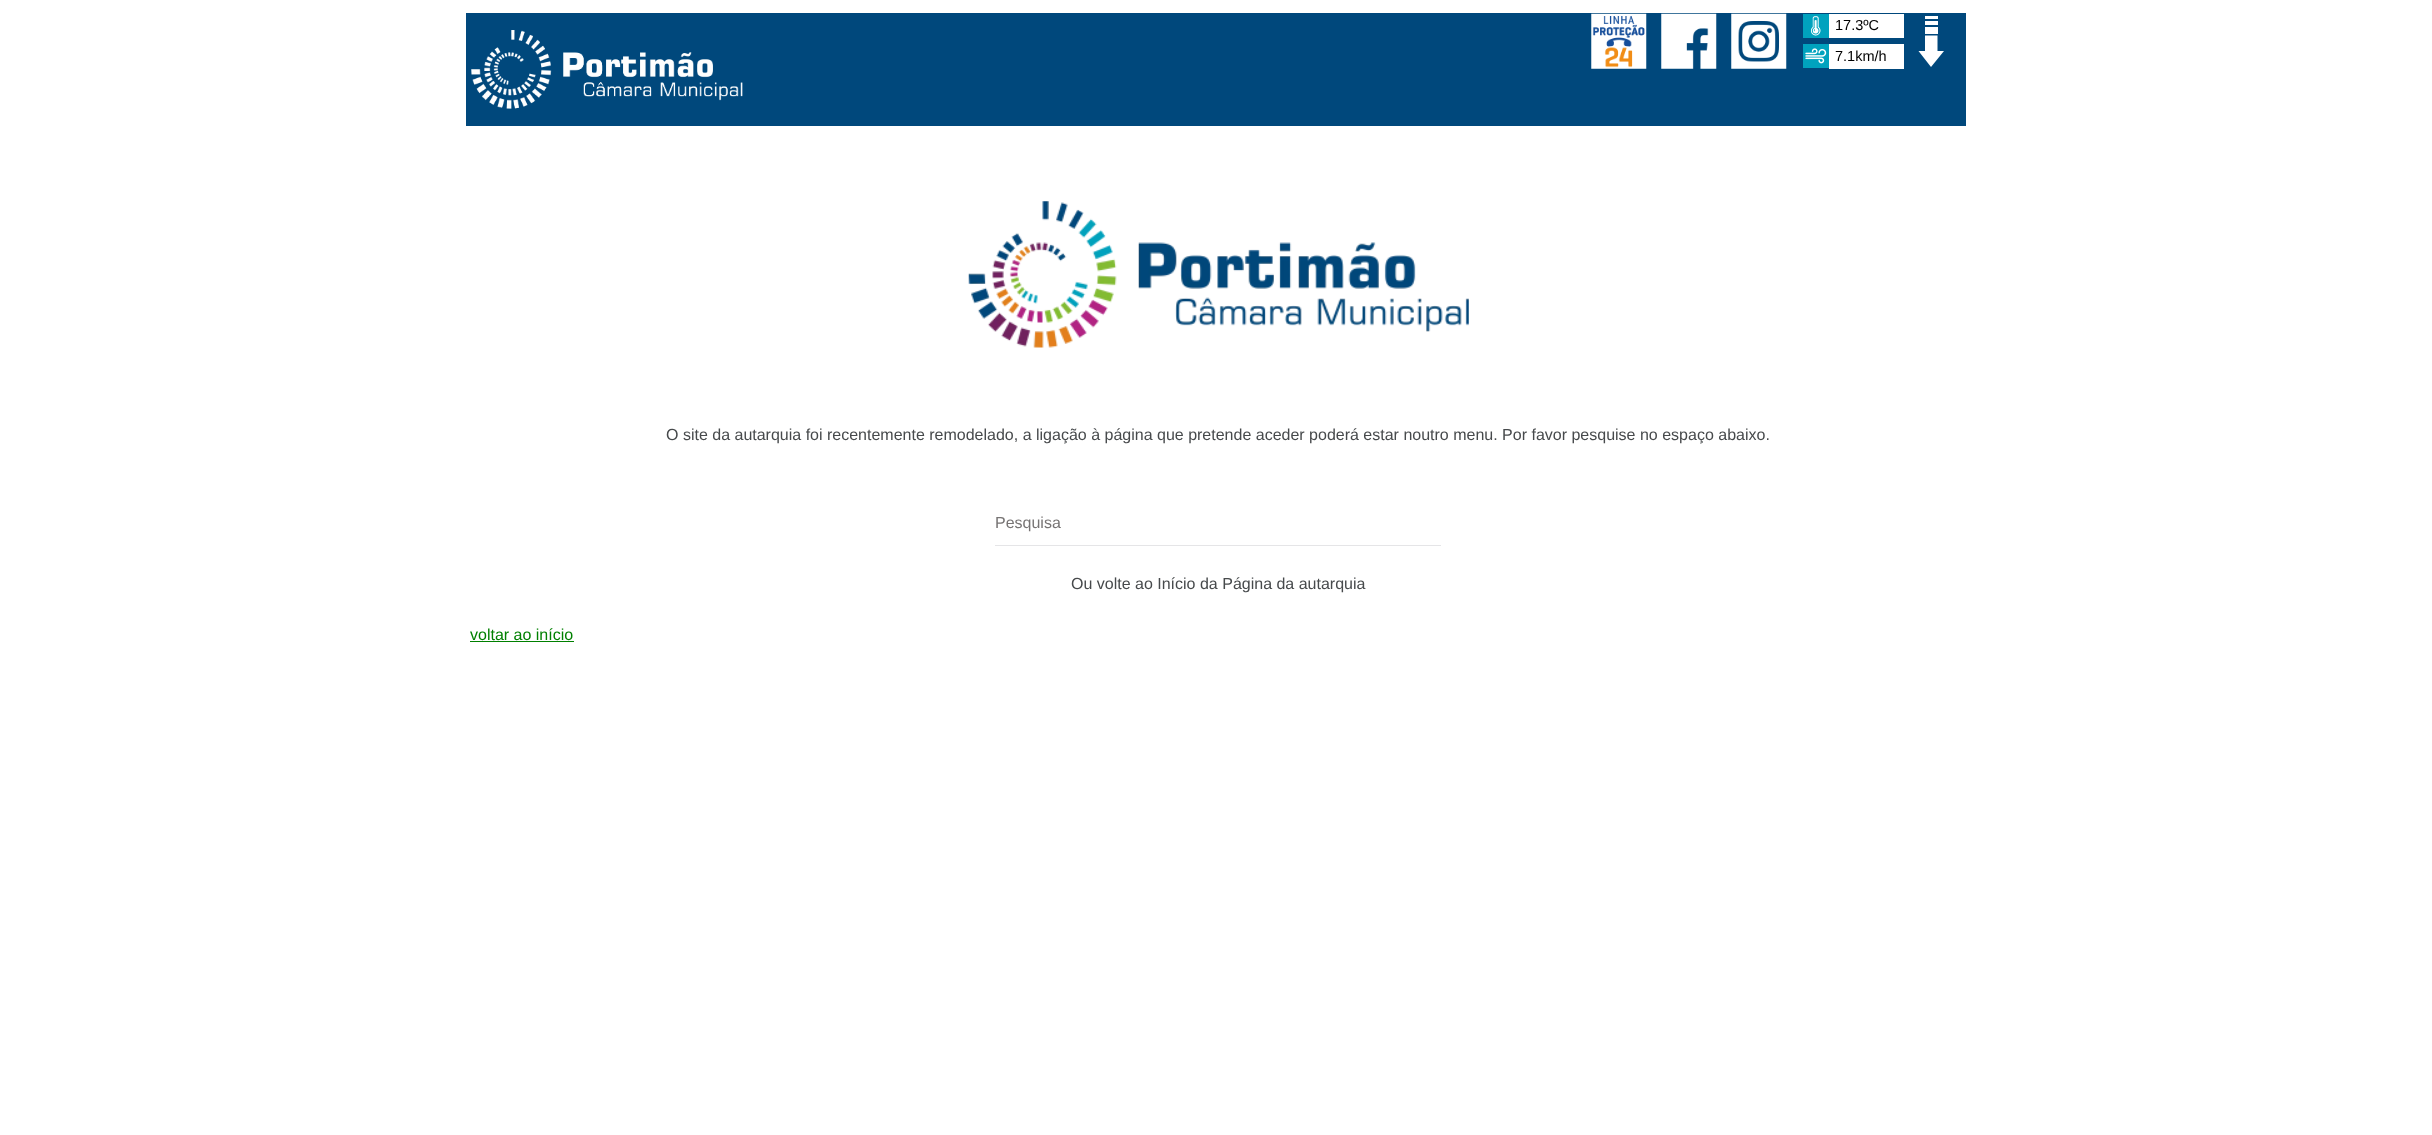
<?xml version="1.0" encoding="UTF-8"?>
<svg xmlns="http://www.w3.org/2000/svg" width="2432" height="1135">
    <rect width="100%" height="100%" fill="#FFFFFF"/>
    <rect x="466" y="13" width="1500" height="113" fill="#00487C"/>
    <image x="471" y="30" width="272" height="79" href="img_01.png"/>
    <image x="1591" y="13" width="56" height="56" href="img_02.png"/>
    <image x="1661" y="13" width="56" height="56" href="img_03.png"/>
    <image x="1731" y="13" width="56" height="56" href="img_04.png"/>
    <image x="1803" y="14" width="26" height="24" href="img_05.png"/>
    <rect x="1829" y="14" width="75" height="24" fill="#FFFFFF"/>
    <text x="1835" y="30" font-family="Liberation Sans" font-size="14.5" fill="#000000">17.3ºC</text>
    <image x="1803" y="44" width="26" height="24" href="img_06.png"/>
    <rect x="1829" y="44" width="75" height="25" fill="#FFFFFF"/>
    <text x="1835" y="61" font-family="Liberation Sans" font-size="14.5" fill="#000000">7.1km/h</text>
    <rect x="1925" y="16" width="13" height="3" fill="#FFFFFF"/>
    <rect x="1925" y="21" width="13" height="4" fill="#FFFFFF"/>
    <rect x="1925" y="27" width="13" height="7" fill="#FFFFFF"/>
    <path d="M 1925 35.5 V 51 H 1918.5 L 1931 67 L 1944 51 H 1937.5 V 35.5 Z" fill="#FFFFFF"/>
    <image x="968" y="201" width="501" height="147" href="img_07.png"/>
    <text x="666" y="440" font-family="Liberation Sans" font-size="16" fill="#474A4C">O site da autarquia foi recentemente remodelado, a ligação à página que pretende aceder poderá estar noutro menu. Por favor pesquise no espaço abaixo.</text>
    <rect x="995" y="545" width="446" height="1" fill="#E5E5E7"/>
    <text x="995" y="528" font-family="Liberation Sans" font-size="16" fill="#777474">Pesquisa</text>
    <text x="1071" y="589" font-family="Liberation Sans" font-size="16" fill="#474A4C">Ou volte ao Início da Página da autarquia</text>
    <text x="470" y="640" font-family="Liberation Sans" font-size="16" fill="#008000">voltar ao início</text>
    <rect x="470" y="641" width="104" height="1" fill="#008000"/>
</svg>
